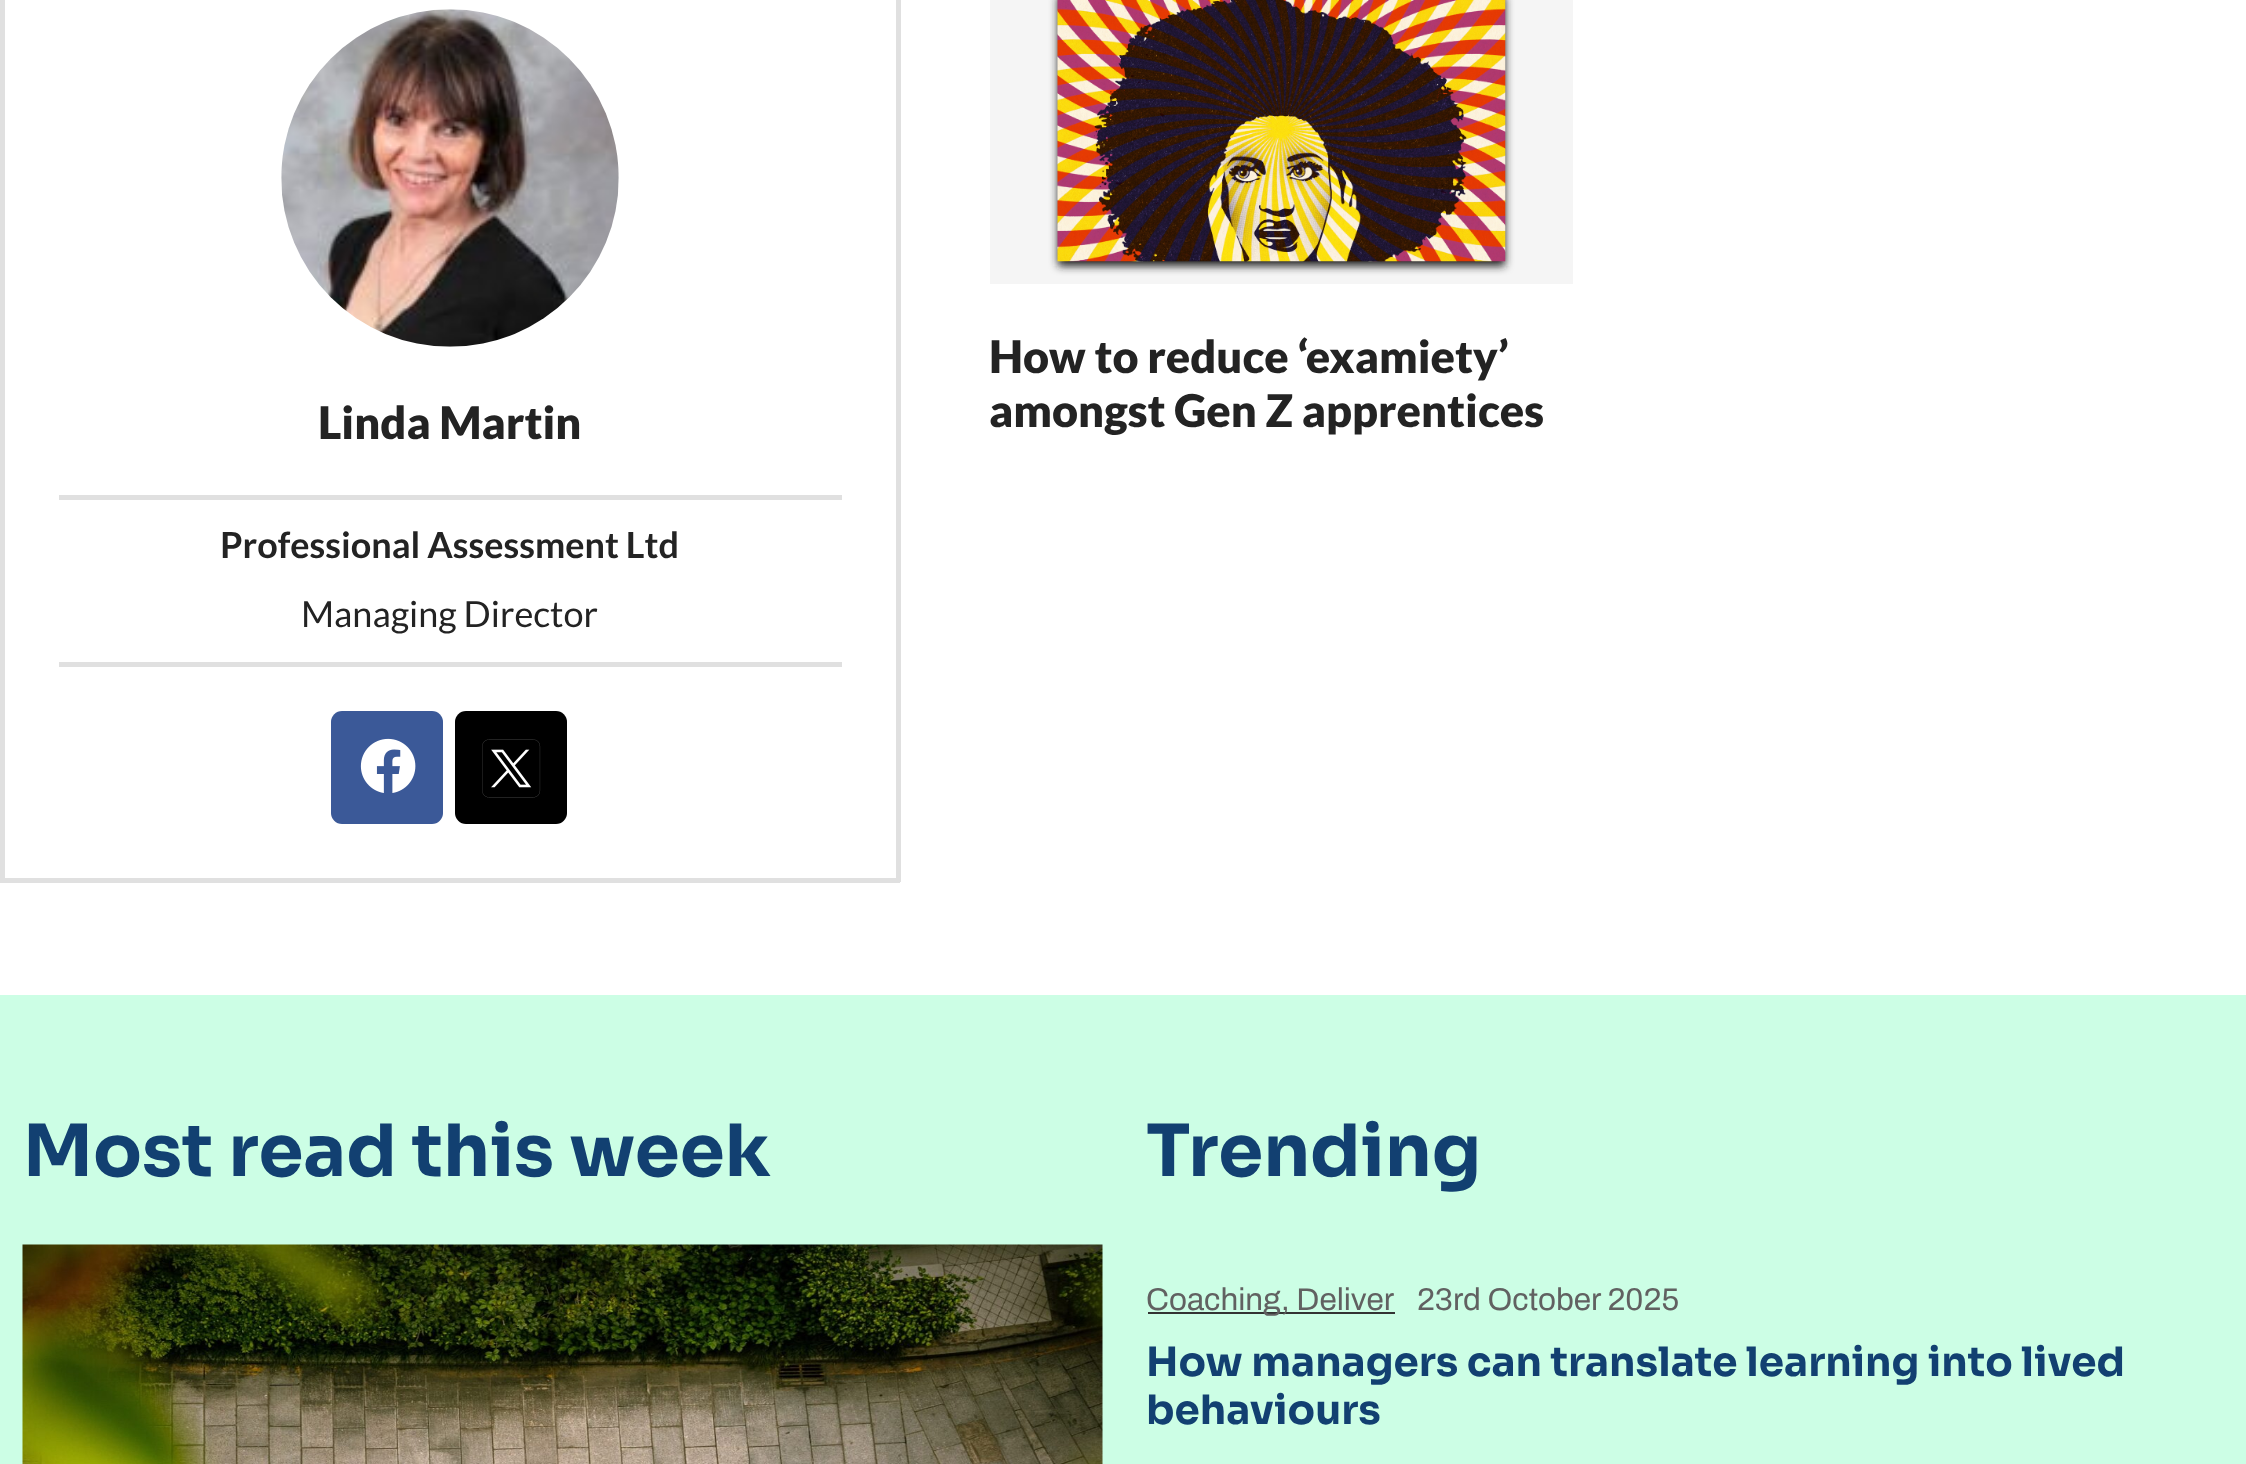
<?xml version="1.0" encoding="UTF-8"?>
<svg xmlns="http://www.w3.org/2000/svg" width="2246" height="1464">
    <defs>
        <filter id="blur1" x="-50%" y="-200%" width="200%" height="500%"><feGaussianBlur stdDeviation="4.5"/></filter>
    </defs>
    <rect width="100%" height="100%" fill="#FFFFFF"/>
    <rect x="990" y="0" width="583" height="284" fill="#F5F5F5"/>
    <rect x="1058" y="-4" width="447" height="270" fill="#232323" filter="url(#blur1)"/>
    <image x="1057" y="0" width="449" height="262" href="img_01.png"/>
    <text font-family="Lato" font-size="45" font-weight="900" fill="#232323">
        <tspan x="989" y="373">How to reduce ‘examiety’</tspan>
        <tspan x="989" y="427">amongst Gen Z apprentices</tspan>
    </text>
    <rect x="896" y="0" width="5" height="882" fill="#E0E0E0"/>
    <rect x="0" y="878" width="900" height="5" fill="#E0E0E0"/>
    <rect x="0" y="0" width="5" height="882" fill="#E0E0E0"/>
    <image x="281" y="9" width="338" height="338" href="img_02.png"/>
    <text x="318" y="439" font-family="Lato" font-size="45" font-weight="900" fill="#232323">Linda Martin</text>
    <rect x="59" y="495" width="783" height="5" fill="#E0E0E0"/>
    <text x="220" y="558" font-family="Lato" font-size="36" font-weight="700" fill="#232323">Professional Assessment Ltd</text>
    <rect x="59" y="662" width="783" height="5" fill="#E0E0E0"/>
    <text x="301" y="627" font-family="Lato" font-size="36" fill="#232323">Managing Director</text>
    <rect x="331" y="711" width="112" height="113" rx="11" fill="#3B5998"/>
    <image x="360" y="738" width="56" height="55" href="img_03.png"/>
    <rect x="455" y="711" width="112" height="113" rx="11" fill="#000000"/>
    <image x="482" y="739" width="59" height="59" href="img_04.png"/>
    <rect x="0" y="995" width="2246" height="469" fill="#CCFEE5"/>
    <text x="23" y="1176" font-family="Sora" font-size="72" font-weight="700" fill="#124071">Most read this week</text>
    <image x="22" y="1244" width="1081" height="220" href="img_05.png"/>
    <text x="1146" y="1176" font-family="Sora" font-size="72" font-weight="700" fill="#124071">Trending</text>
    <rect x="1148" y="1312" width="132" height="2" fill="#333333"/>
    <text x="1146" y="1310" font-family="Archivo" font-size="31.5" fill="#616161">Coaching</text>
    <rect x="1280" y="1312" width="115" height="2" fill="#333333"/>
    <text x="1281" y="1310" font-family="Archivo" font-size="31.5" fill="#616161">, Deliver</text>
    <text x="1417" y="1310" font-family="Archivo" font-size="31.5" fill="#616161">23rd October 2025</text>
    <text font-family="Sora" font-size="40.5" font-weight="700" fill="#124071">
        <tspan x="1146" y="1376">How managers can translate learning into lived</tspan>
        <tspan x="1146" y="1424">behaviours</tspan>
    </text>
</svg>
